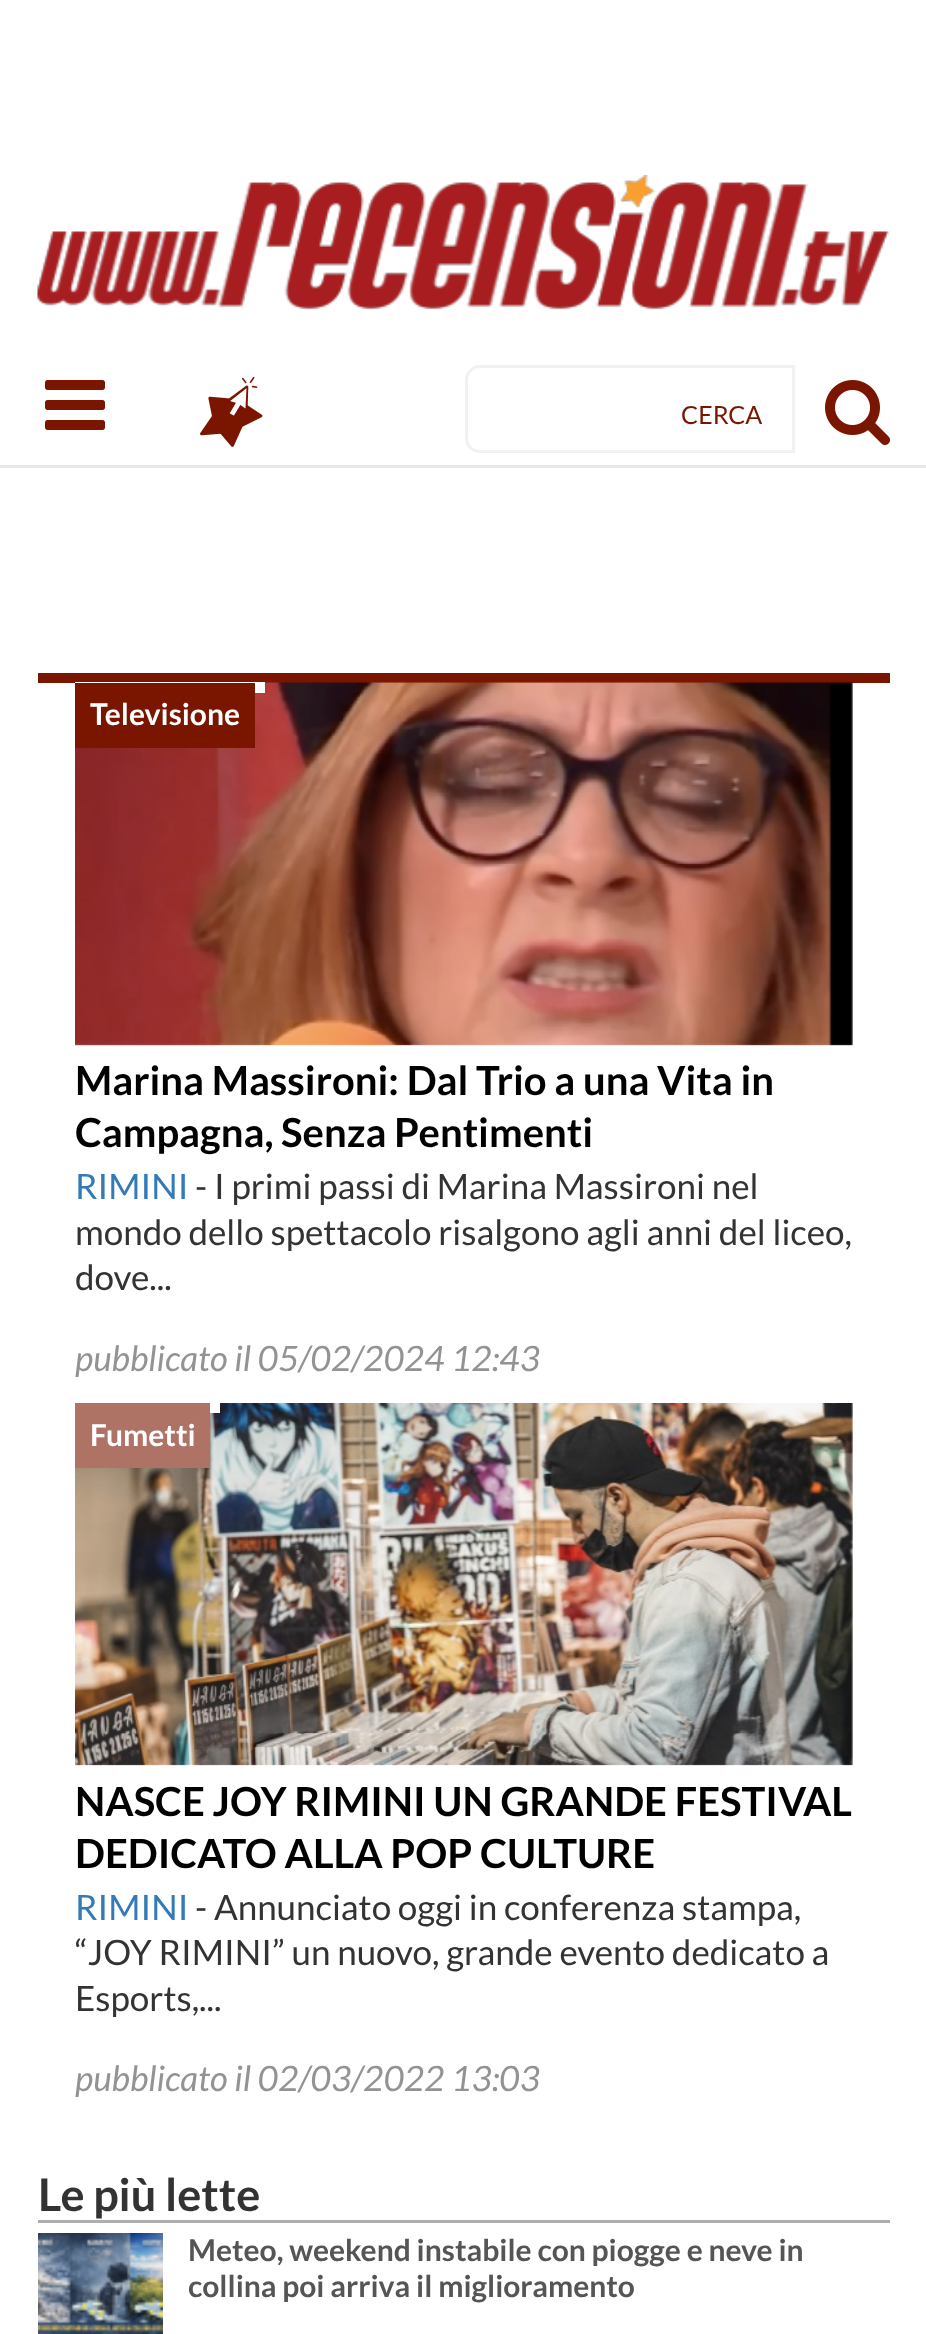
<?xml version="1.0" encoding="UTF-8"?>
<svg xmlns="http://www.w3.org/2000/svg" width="926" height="2334">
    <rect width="100%" height="100%" fill="#FFFFFF"/>
    <image x="37" y="175" width="852" height="135" href="img_01.png"/>
    <rect x="0" y="465" width="926" height="3" fill="#E8E8E8"/>
    <image x="45" y="380" width="60" height="50" href="img_02.png"/>
    <image x="200" y="376" width="63" height="71" href="img_03.png"/>
    <path d="M 480 366.5 H 793.5 V 451.5 H 480 C 472.5 451.5 466.5 445.5 466.5 438 V 380 C 466.5 372.5 472.5 366.5 480 366.5 Z" fill="none" stroke="#F1F1F1" stroke-width="3"/>
    <text x="681" y="424" font-family="Lato" font-size="25" fill="#7A1600">CERCA</text>
    <image x="825" y="380" width="65" height="65" href="img_04.png"/>
    <rect x="38" y="673" width="852" height="10" fill="#7A1600"/>
    <image x="75" y="681" width="778" height="365" href="img_05.png"/>
    <rect x="75" y="682" width="190" height="11" fill="#FFFFFF"/>
    <rect x="75" y="683" width="180" height="65" fill="#7A1600"/>
    <text x="90" y="725" font-family="Lato" font-size="30" font-weight="700" fill="#FFFFFF">Televisione</text>
    <text font-family="Lato" font-size="40" font-weight="700" fill="#000000">
        <tspan x="75" y="1095">Marina Massironi: Dal Trio a una Vita in</tspan>
        <tspan x="75" y="1147">Campagna, Senza Pentimenti</tspan>
    </text>
    <text x="75" y="1199" font-family="Lato" font-size="35" fill="#337AB7">RIMINI</text>
    <text x="195" y="1199" font-family="Lato" font-size="35" fill="#333333">- I primi passi di Marina Massironi nel</text>
    <text font-family="Lato" font-size="35" fill="#333333">
        <tspan x="75" y="1245">mondo dello spettacolo risalgono agli anni del liceo,</tspan>
        <tspan x="75" y="1290">dove...</tspan>
    </text>
    <text x="75" y="1371" font-family="Lato" font-size="35" font-style="italic" fill="#939393">pubblicato il 05/02/2024 12:43</text>
    <image x="75" y="1403" width="778" height="363" href="img_06.png"/>
    <rect x="210" y="1403" width="10" height="10" fill="#FFFFFF"/>
    <rect x="75" y="1403" width="135" height="65" fill="#AF7366"/>
    <text x="90" y="1446" font-family="Lato" font-size="30" font-weight="700" fill="#FFFFFF">Fumetti</text>
    <text font-family="Lato" font-size="40" font-weight="700" fill="#000000">
        <tspan x="75" y="1816">NASCE JOY RIMINI UN GRANDE FESTIVAL</tspan>
        <tspan x="75" y="1868">DEDICATO ALLA POP CULTURE</tspan>
    </text>
    <text x="75" y="1920" font-family="Lato" font-size="35" fill="#337AB7">RIMINI</text>
    <text x="195" y="1920" font-family="Lato" font-size="35" fill="#333333">- Annunciato oggi in conferenza stampa,</text>
    <text font-family="Lato" font-size="35" fill="#333333">
        <tspan x="75" y="1965">“JOY RIMINI” un nuovo, grande evento dedicato a</tspan>
        <tspan x="75" y="2011">Esports,...</tspan>
    </text>
    <text x="75" y="2091" font-family="Lato" font-size="35" font-style="italic" fill="#939393">pubblicato il 02/03/2022 13:03</text>
    <rect x="38" y="2220" width="852" height="3" fill="#AEAEAE"/>
    <text x="38" y="2211" font-family="Lato" font-size="45" font-weight="700" fill="#333333">Le più lette</text>
    <image x="38" y="2233" width="125" height="101" href="img_07.png"/>
    <text font-family="Lato" font-size="30" font-weight="700" fill="#555555">
        <tspan x="188" y="2261">Meteo, weekend instabile con piogge e neve in</tspan>
        <tspan x="188" y="2297">collina poi arriva il miglioramento</tspan>
    </text>
</svg>
